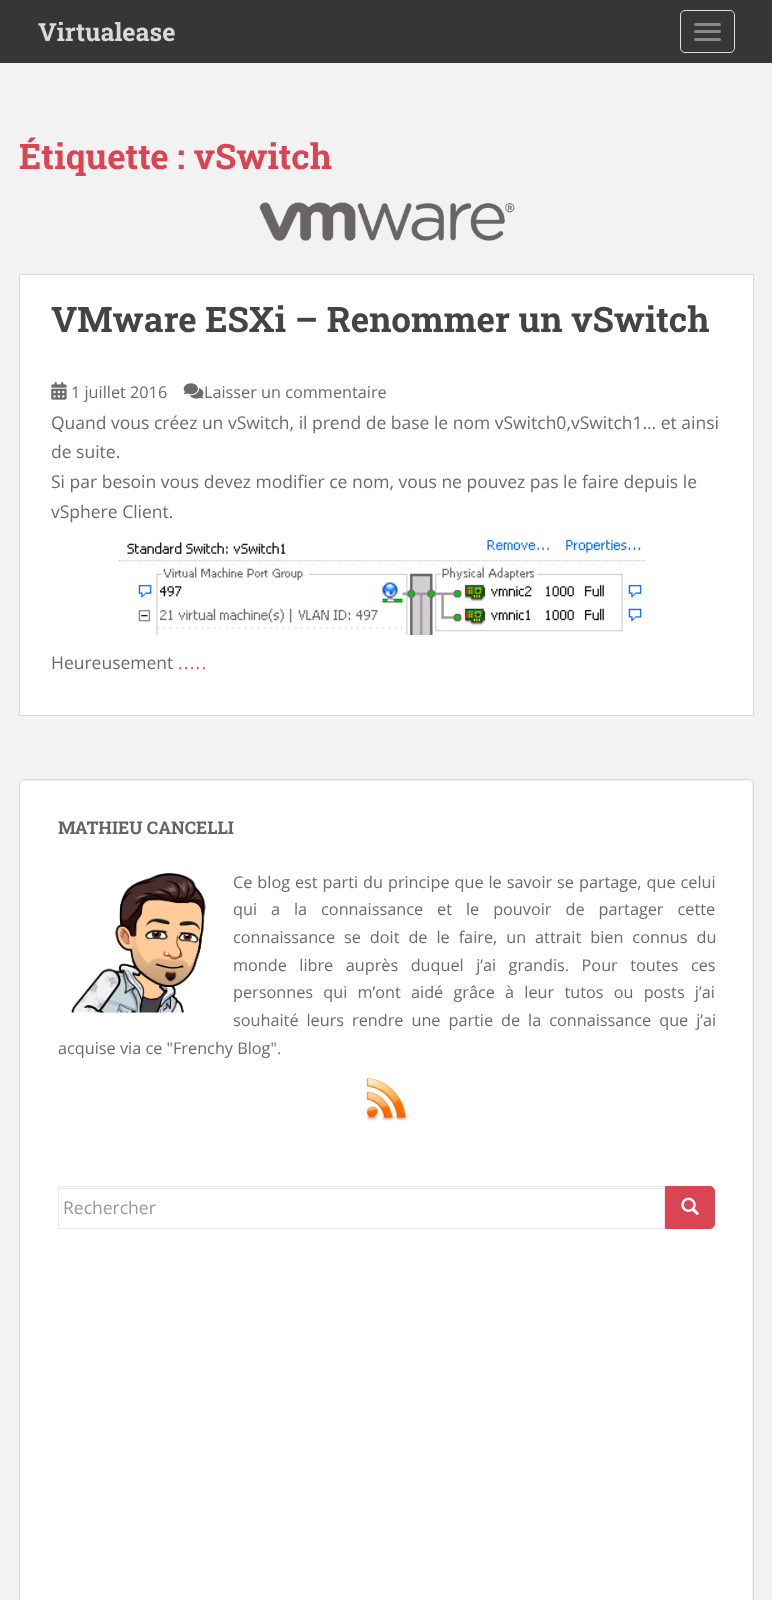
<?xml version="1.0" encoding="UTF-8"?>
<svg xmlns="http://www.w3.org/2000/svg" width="772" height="1600">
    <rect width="100%" height="100%" fill="#F2F2F2"/>
    <rect x="0" y="0" width="772" height="63" fill="#363636"/>
    <text x="38" y="41" font-family="Roboto Slab" font-size="25" font-weight="700" fill="#DADADA">Virtualease</text>
    <rect x="680.5" y="10.5" width="54" height="42" rx="4.5" fill="none" stroke="#DDDDDD"/>
    <rect x="694" y="23" width="27" height="3" rx="1.5" fill="#888888"/>
    <rect x="694" y="30" width="27" height="3" rx="1.5" fill="#888888"/>
    <rect x="694" y="38" width="27" height="3" rx="1.5" fill="#888888"/>
    <text x="19" y="169" font-family="Roboto Slab" font-size="35" font-weight="700" fill="#DA4453">Étiquette : vSwitch</text>
    <image x="259" y="202" width="256" height="39" href="img_01.png"/>
    <rect x="19.5" y="274.5" width="734" height="441" fill="#FFFFFF" stroke="#DADADA"/>
    <text x="51" y="332" font-family="Roboto Slab" font-size="35" font-weight="700" fill="#444444">VMware ESXi – Renommer un vSwitch</text>
    <image x="51" y="382" width="16" height="18" href="img_02.png"/>
    <text x="71" y="398" font-family="Open Sans" font-size="16.25" fill="#6B6B6B">1 juillet 2016</text>
    <image x="183" y="383" width="21" height="16" href="img_03.png"/>
    <text x="204" y="398" font-family="Open Sans" font-size="16.25" fill="#6B6B6B">Laisser un commentaire</text>
    <text font-family="Open Sans" font-size="17.5" fill="#6B6B6B">
        <tspan x="51" y="429">Quand vous créez un vSwitch, il prend de base le nom vSwitch0,vSwitch1… et ainsi</tspan>
        <tspan x="51" y="458">de suite.</tspan>
        <tspan x="51" y="488">Si par besoin vous devez modifier ce nom, vous ne pouvez pas le faire depuis le</tspan>
        <tspan x="51" y="518">vSphere Client.</tspan>
    </text>
    <image x="118" y="539" width="528" height="96" href="img_04.png"/>
    <text x="51" y="669" font-family="Open Sans" font-size="17.5" fill="#6B6B6B">Heureusement</text>
    <text x="178" y="669" font-family="Open Sans" font-size="17.5" letter-spacing="1.25" fill="#DA4453">.....</text>
    <rect x="19" y="779" width="735" height="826" rx="5" fill="#FFFFFF"/>
    <path d="M 24 781 H 749 C 751 781 752 783 752 785 V 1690 C 753 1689 753 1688 753 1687 V 784 C 753 782 751 780 749 780 H 24 C 22 780 20 782 20 784 V 785 C 20 783 22 781 24 781 Z" fill="#F2F2F2"/>
    <rect x="19.5" y="779.5" width="734" height="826" rx="4.5" fill="none" stroke="#DADADA"/>
    <text x="58" y="834" font-family="Roboto Slab" font-size="17.5" font-weight="700" fill="#636467">MATHIEU CANCELLI</text>
    <image x="71" y="873" width="135" height="140" href="img_05.png"/>
    <text font-family="Open Sans" font-size="16.25" fill="#6B6B6B">
        <tspan x="233" y="888" word-spacing="0.75">Ce blog est parti du principe que le savoir se partage, que celui</tspan>
        <tspan x="233" y="915" word-spacing="9.75">qui a la connaissance et le pouvoir de partager cette</tspan>
        <tspan x="233" y="943" word-spacing="4.75">connaissance se doit de le faire, un attrait bien connus du</tspan>
        <tspan x="233" y="971" word-spacing="8.25">monde libre auprès duquel j’ai grandis. Pour toutes ces</tspan>
        <tspan x="233" y="998" word-spacing="6">personnes qui m’ont aidé grâce à leur tutos ou posts j’ai</tspan>
        <tspan x="233" y="1026" word-spacing="3.75">souhaité leurs rendre une partie de la connaissance que j’ai</tspan>
    </text>
    <text x="58" y="1054" font-family="Open Sans" font-size="16.25" fill="#6B6B6B">acquise via ce "Frenchy Blog".</text>
    <image x="366" y="1077" width="42" height="44" href="img_06.png"/>
    <rect x="59" y="1188" width="605" height="1" fill="#ECECEC"/>
    <rect x="58.5" y="1186.5" width="606" height="42" fill="none" stroke="#E8E8E8"/>
    <text x="63" y="1214" font-family="Open Sans" font-size="17.5" fill="#999999">Rechercher</text>
    <path d="M 665.5 1186.5 H 710 C 712.5 1186.5 714.5 1188.5 714.5 1191 V 1224 C 714.5 1226.5 712.5 1228.5 710 1228.5 H 665.5 Z" fill="#DA4453" stroke="#DA4453"/>
    <image x="681" y="1197" width="18" height="18" href="img_07.png"/>
</svg>
